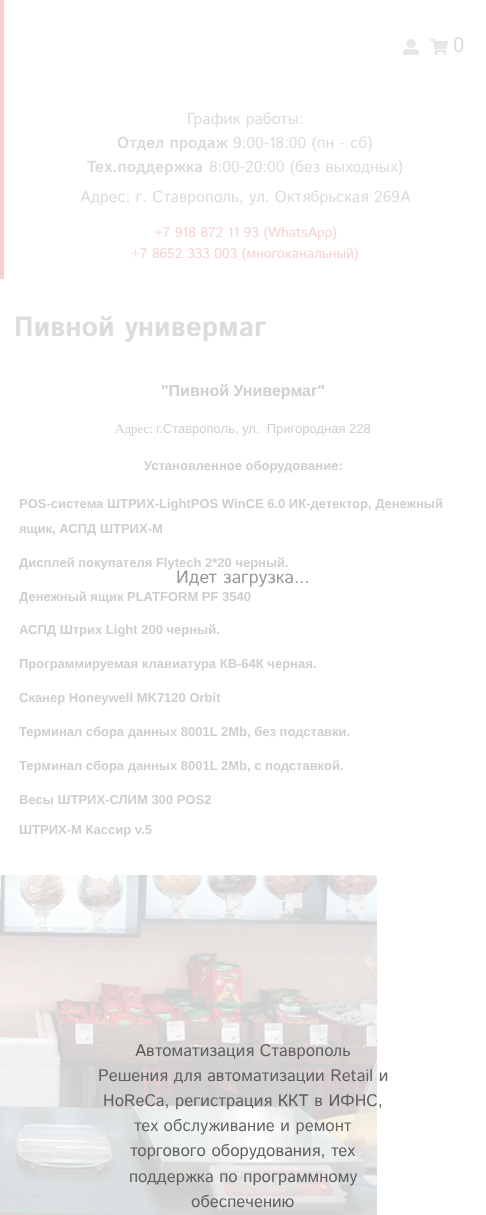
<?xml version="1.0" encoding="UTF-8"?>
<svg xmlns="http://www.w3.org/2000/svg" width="486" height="1215">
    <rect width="100%" height="100%" fill="#FFFFFF"/>
    <rect x="0" y="0" width="4" height="279" fill="#F9CFCF"/>
    <image x="403" y="38" width="17" height="17" href="img_01.png"/>
    <image x="430" y="38" width="19" height="17" href="img_02.png"/>
    <text x="453" y="52" font-family="Istok Web" font-size="21" fill="#DCDCDC">0</text>
    <text x="187" y="124" font-family="Istok Web" font-size="16" fill="#DCDCDC">График работы:</text>
    <text x="117" y="148" font-family="Istok Web" font-size="16" font-weight="700" fill="#DCDCDC">Отдел продаж</text>
    <text x="233" y="148" font-family="Istok Web" font-size="16" fill="#DCDCDC">9:00-18:00 (пн - сб)</text>
    <text x="87" y="172" font-family="Istok Web" font-size="16" font-weight="700" fill="#DCDCDC">Тех.поддержка</text>
    <text x="209" y="172" font-family="Istok Web" font-size="16" fill="#DCDCDC">8:00-20:00 (без выходных)</text>
    <text x="80" y="202" font-family="Istok Web" font-size="16" fill="#DCDCDC">Адрес: г. Ставрополь, ул. Октябрьская 269А</text>
    <text x="154" y="237" font-family="Istok Web" font-size="14" fill="#F4D2D2">+7 918 872 11 93 (WhatsApp)</text>
    <text x="131" y="258" font-family="Istok Web" font-size="14" fill="#F4D2D2">+7 8652 333 003 (многоканальный)</text>
    <text x="14" y="336" font-family="Istok Web" font-size="28" font-weight="700" fill="#DCDCDC">Пивной универмаг</text>
    <text x="161" y="396" font-family="Liberation Sans" font-size="16" font-weight="700" fill="#CFCFCF">"Пивной Универмаг"</text>
    <text x="115" y="433" font-family="Liberation Serif" font-size="13" fill="#CFCFCF">Адрес:</text>
    <text x="156" y="433" font-family="Liberation Sans" font-size="13" fill="#CFCFCF" xml:space="preserve">г.Ставрополь, ул.  Пригородная 228</text>
    <text x="144" y="470" font-family="Liberation Sans" font-size="13" font-weight="700" fill="#CFCFCF">Установленное оборудование:</text>
    <text font-family="Liberation Sans" font-size="13" font-weight="700" fill="#CFCFCF">
        <tspan x="19" y="508">POS-система ШТРИХ-LightPOS WinCE 6.0 ИК-детектор, Денежный</tspan>
        <tspan x="19" y="533">ящик, АСПД ШТРИХ-М</tspan>
    </text>
    <text x="19" y="567" font-family="Liberation Sans" font-size="13" font-weight="700" fill="#CFCFCF">Дисплей покупателя Flytech 2*20 черный.</text>
    <text x="19" y="601" font-family="Liberation Sans" font-size="13" font-weight="700" fill="#CFCFCF">Денежный ящик PLATFORM PF 3540</text>
    <text x="19" y="634" font-family="Liberation Sans" font-size="13" font-weight="700" fill="#CFCFCF">АСПД Штрих Light 200 черный.</text>
    <text x="19" y="668" font-family="Liberation Sans" font-size="13" font-weight="700" fill="#CFCFCF">Программируемая клавиатура КВ-64К черная.</text>
    <text x="19" y="702" font-family="Liberation Sans" font-size="13" font-weight="700" fill="#CFCFCF">Сканер Honeywell MK7120 Orbit</text>
    <text x="19" y="736" font-family="Liberation Sans" font-size="13" font-weight="700" fill="#CFCFCF">Терминал сбора данных 8001L 2Mb, без подставки.</text>
    <text x="19" y="770" font-family="Liberation Sans" font-size="13" font-weight="700" fill="#CFCFCF">Терминал сбора данных 8001L 2Mb, с подставкой.</text>
    <text x="19" y="804" font-family="Liberation Sans" font-size="13" font-weight="700" fill="#CFCFCF">Весы ШТРИХ-СЛИМ 300 POS2</text>
    <text x="19" y="834" font-family="Liberation Sans" font-size="13" font-weight="700" fill="#CFCFCF">ШТРИХ-М Кассир v.5</text>
    <image x="0" y="875" width="377" height="340" href="img_03.png"/>
    <text x="176" y="583" font-family="Istok Web" font-size="18" fill="#989898">Идет загрузка...</text>
    <text x="135" y="1056" font-family="Istok Web" font-size="16.75" fill="#616060">Автоматизация Ставрополь</text>
    <text x="98" y="1081" font-family="Istok Web" font-size="16.75" fill="#616060">Решения для автоматизации Retail и</text>
    <text x="103" y="1106" font-family="Istok Web" font-size="16.75" fill="#616060">HoReCa, регистрация ККТ в ИФНС,</text>
    <text x="134" y="1131" font-family="Istok Web" font-size="16.75" fill="#666666">тех обслуживание и ремонт</text>
    <text x="130" y="1156" font-family="Istok Web" font-size="16.75" fill="#616060">торгового оборудования, тех</text>
    <text x="129" y="1182" font-family="Istok Web" font-size="16.75" fill="#616060">поддержка по программному</text>
    <text x="191" y="1207" font-family="Istok Web" font-size="16.75" fill="#616060">обеспечению</text>
</svg>
